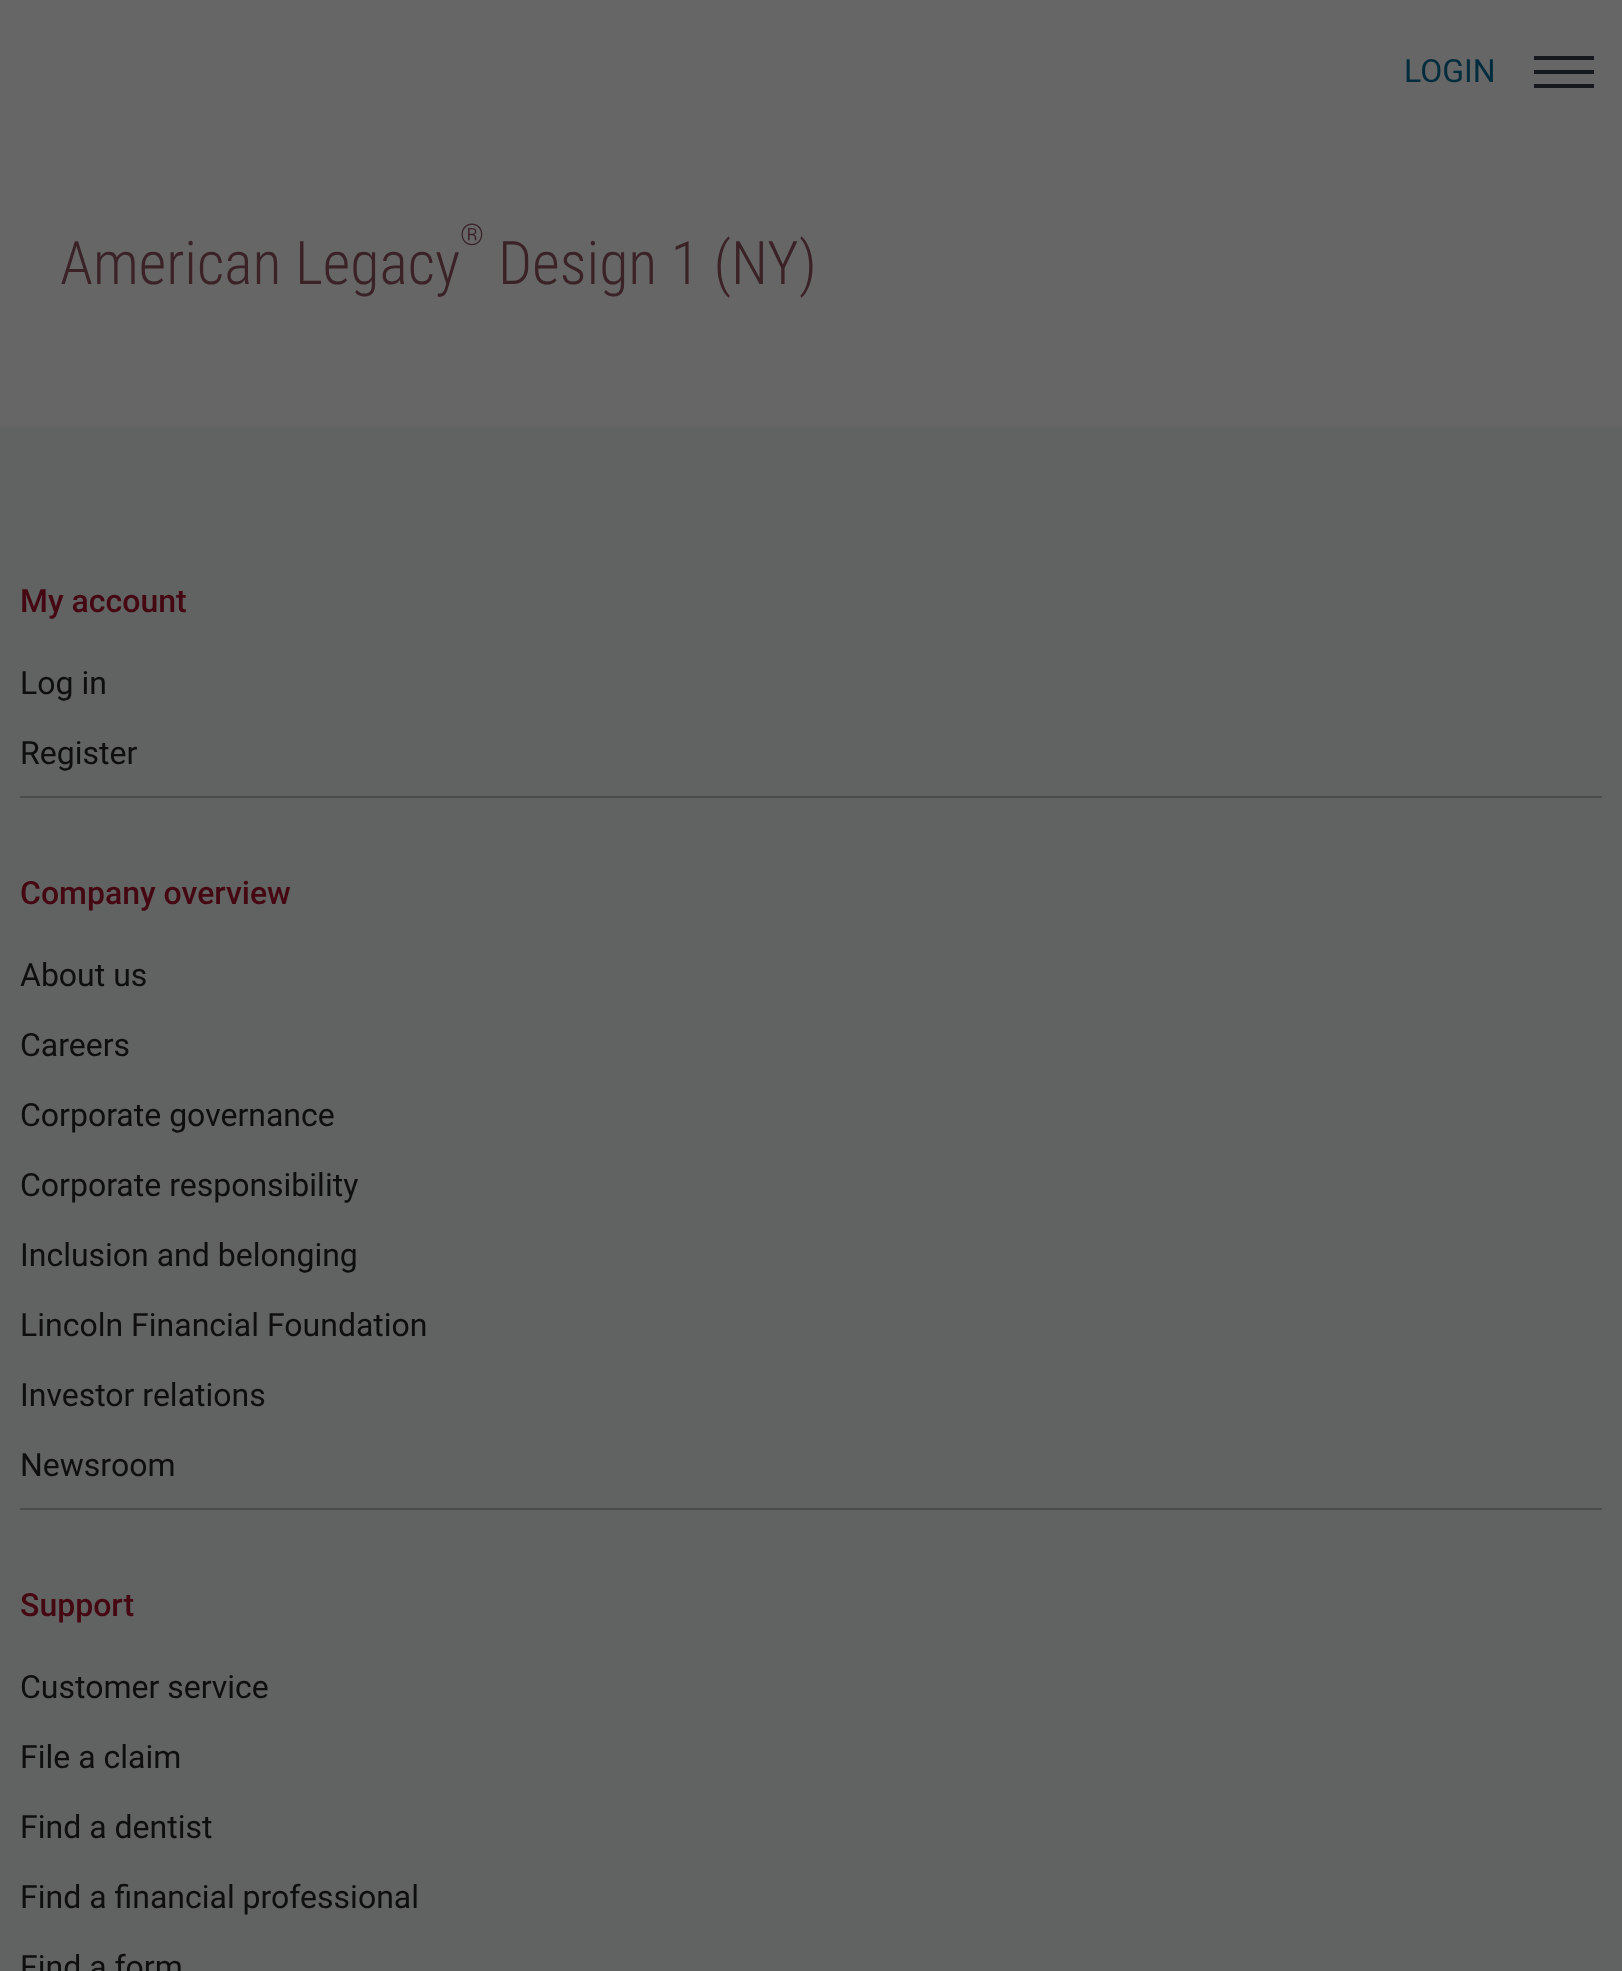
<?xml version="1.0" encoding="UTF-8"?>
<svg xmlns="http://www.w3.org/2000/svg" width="1622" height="1971">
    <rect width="100%" height="100%" fill="#666666"/>
    <text x="1404" y="82" font-family="Roboto" font-size="32" fill="#012C3E">LOGIN</text>
    <rect x="1534" y="56" width="60" height="4" fill="#161A1E"/>
    <rect x="1534" y="70" width="60" height="4" fill="#161A1E"/>
    <rect x="1534" y="84" width="60" height="4" fill="#161A1E"/>
    <text x="60" y="284" font-family="Roboto Condensed" font-size="60" font-weight="300" fill="#3A2227">American Legacy</text>
    <text x="460" y="245" font-family="Roboto Condensed" font-size="30" font-weight="300" fill="#3A2227">®</text>
    <text x="498" y="284" font-family="Roboto Condensed" font-size="60" font-weight="300" fill="#3A2227">Design 1 (NY)</text>
    <rect x="0" y="426" width="1622" height="1545" fill="#616262"/>
    <text x="20" y="612" font-family="Roboto" font-size="32" font-weight="500" fill="#450711">My account</text>
    <text x="20" y="694" font-family="Roboto" font-size="32" fill="#0E0E0E">Log in</text>
    <text x="20" y="764" font-family="Roboto" font-size="32" fill="#0E0E0E">Register</text>
    <rect x="20" y="796" width="1582" height="2" fill="#4C4C4C"/>
    <text x="20" y="904" font-family="Roboto" font-size="32" font-weight="500" fill="#450711">Company overview</text>
    <text x="20" y="986" font-family="Roboto" font-size="32" fill="#0E0E0E">About us</text>
    <text x="20" y="1056" font-family="Roboto" font-size="32" fill="#0E0E0E">Careers</text>
    <text x="20" y="1126" font-family="Roboto" font-size="32" fill="#0E0E0E">Corporate governance</text>
    <text x="20" y="1196" font-family="Roboto" font-size="32" fill="#0E0E0E">Corporate responsibility</text>
    <text x="20" y="1266" font-family="Roboto" font-size="32" fill="#0E0E0E">Inclusion and belonging</text>
    <text x="20" y="1336" font-family="Roboto" font-size="32" fill="#0E0E0E">Lincoln Financial Foundation</text>
    <text x="20" y="1406" font-family="Roboto" font-size="32" fill="#0E0E0E">Investor relations</text>
    <text x="20" y="1476" font-family="Roboto" font-size="32" fill="#0E0E0E">Newsroom</text>
    <rect x="20" y="1508" width="1582" height="2" fill="#4C4C4C"/>
    <text x="20" y="1616" font-family="Roboto" font-size="32" font-weight="500" fill="#450711">Support</text>
    <text x="20" y="1698" font-family="Roboto" font-size="32" fill="#0E0E0E">Customer service</text>
    <text x="20" y="1768" font-family="Roboto" font-size="32" fill="#0E0E0E">File a claim</text>
    <text x="20" y="1838" font-family="Roboto" font-size="32" fill="#0E0E0E">Find a dentist</text>
    <text x="20" y="1908" font-family="Roboto" font-size="32" fill="#0E0E0E">Find a financial professional</text>
    <text x="20" y="1978" font-family="Roboto" font-size="32" fill="#0E0E0E">Find a form</text>
</svg>
